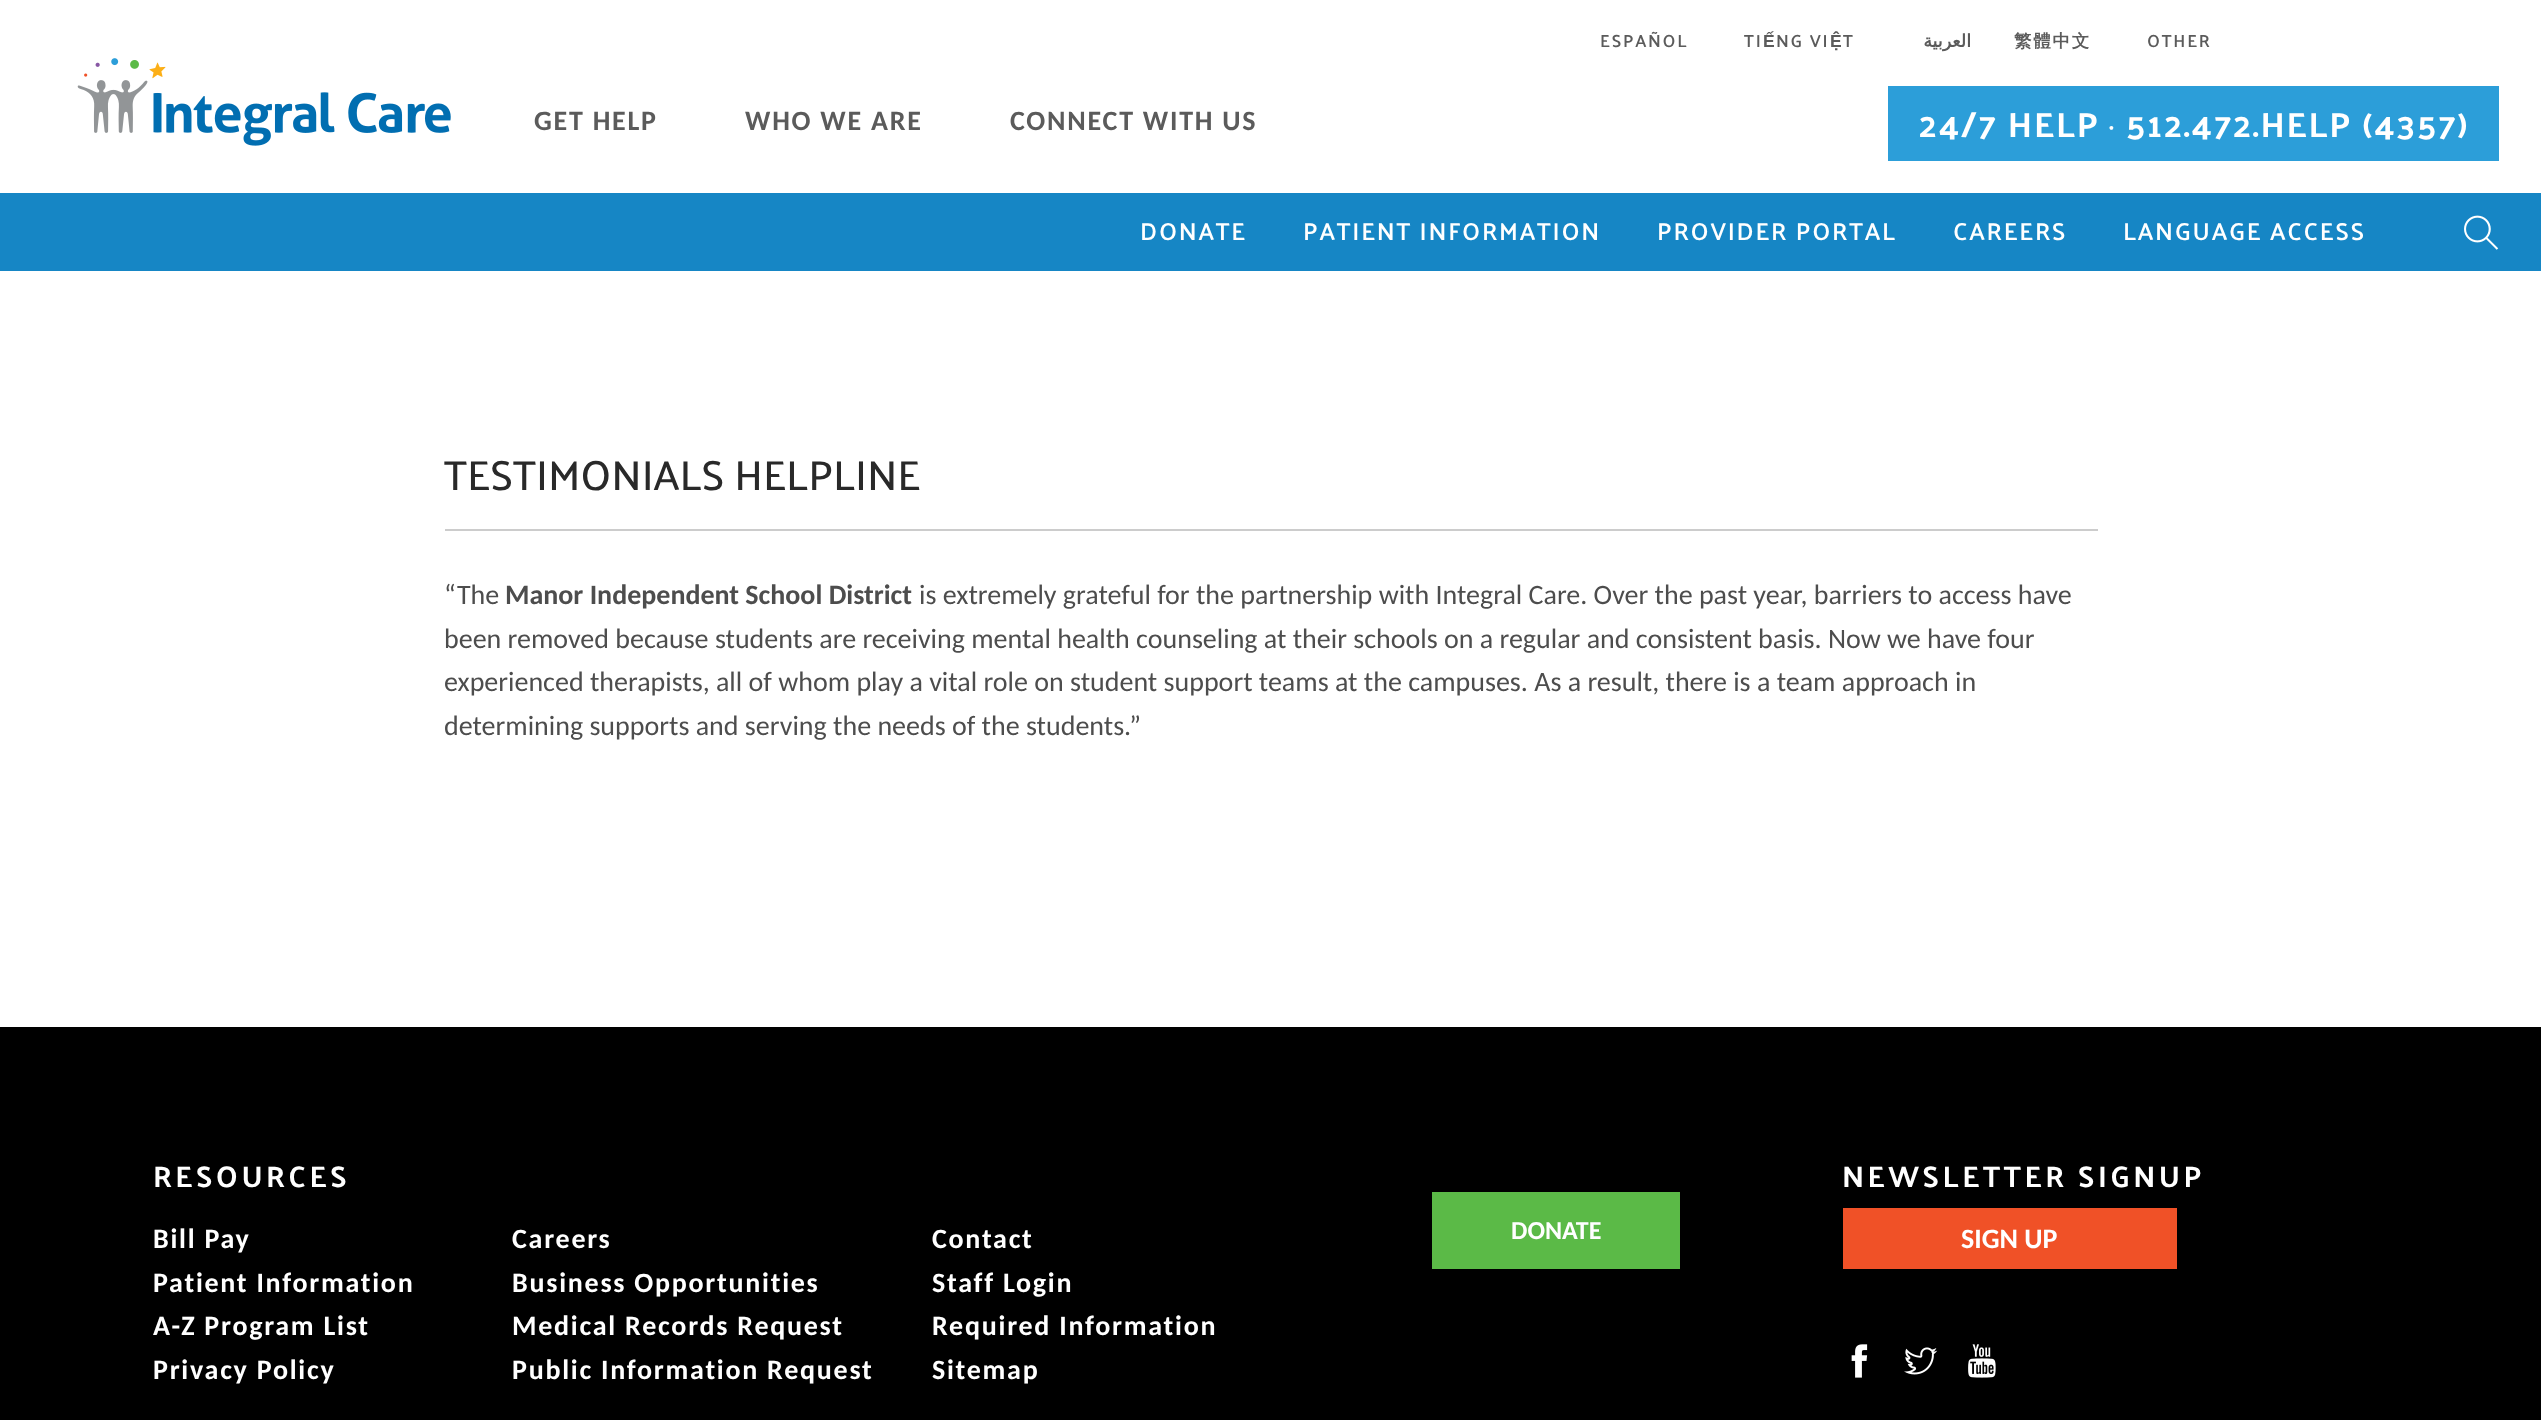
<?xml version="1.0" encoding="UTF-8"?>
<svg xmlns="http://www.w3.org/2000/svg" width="2541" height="1420">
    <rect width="100%" height="100%" fill="#FFFFFF"/>
    <text x="1600" y="47" font-family="Palanquin" font-size="17.5" font-weight="600" letter-spacing="1.75" fill="#5B5B5B">ESPAÑOL</text>
    <text x="1744" y="47" font-family="Palanquin" font-size="17.5" font-weight="600" letter-spacing="1.75" fill="#5B5B5B">TI</text>
    <text x="1763" y="47" font-family="Liberation Sans" font-size="17.5" font-weight="700" letter-spacing="1.75" fill="#5B5B5B">Ế</text>
    <text x="1776" y="47" font-family="Palanquin" font-size="17.5" font-weight="600" letter-spacing="1.75" fill="#5B5B5B">NG VI</text>
    <text x="1830" y="47" font-family="Liberation Sans" font-size="17.5" font-weight="700" letter-spacing="1.75" fill="#5B5B5B">Ệ</text>
    <text x="1843" y="47" font-family="Palanquin" font-size="17.5" font-weight="600" letter-spacing="1.75" fill="#5B5B5B">T</text>
    <text x="1971" y="47" font-family="DejaVu Sans" font-size="17.5" font-weight="700" letter-spacing="1.75" direction="rtl" fill="#5B5B5B">العربية</text>
    <text x="2014" y="47" font-family="WenQuanYi Zen Hei" font-size="17.5" font-weight="700" letter-spacing="1.75" fill="#5B5B5B">繁體中文</text>
    <text x="2147" y="47" font-family="Palanquin" font-size="17.5" font-weight="600" letter-spacing="1.75" fill="#5B5B5B">OTHER</text>
    <image x="77" y="58" width="374" height="88" href="img_01.png"/>
    <text x="534" y="130" font-family="Carlito" font-size="28" font-weight="700" letter-spacing="1.75" fill="#5B5B5B">GET HELP</text>
    <text x="745" y="130" font-family="Carlito" font-size="28" font-weight="700" letter-spacing="1.75" fill="#5B5B5B">WHO WE ARE</text>
    <text x="1010" y="130" font-family="Carlito" font-size="28" font-weight="700" letter-spacing="1.75" fill="#5B5B5B">CONNECT WITH US</text>
    <rect x="1888" y="86" width="611" height="75" fill="#2C9ED9"/>
    <text x="1919" y="137" font-family="Palanquin" font-size="35" font-weight="700" letter-spacing="1.75" fill="#FFFFFF">24/7 HELP</text>
    <text x="2109" y="137" font-family="Palanquin" font-size="35" letter-spacing="1.75" fill="#FFFFFF">·</text>
    <text x="2126" y="137" font-family="Palanquin" font-size="35" font-weight="700" letter-spacing="1.75" fill="#FFFFFF">512.472.HELP (4357)</text>
    <rect x="0" y="193" width="2541" height="78" fill="#1686C5"/>
    <text x="1140" y="240" font-family="Palanquin" font-size="24.5" font-weight="600" letter-spacing="1.75" fill="#FFFFFF">DONATE</text>
    <text x="1303" y="240" font-family="Palanquin" font-size="24.5" font-weight="600" letter-spacing="1.75" fill="#FFFFFF">PATIENT INFORMATION</text>
    <text x="1657" y="240" font-family="Palanquin" font-size="24.5" font-weight="600" letter-spacing="1.75" fill="#FFFFFF">PROVIDER PORTAL</text>
    <text x="1953" y="240" font-family="Palanquin" font-size="24.5" font-weight="600" letter-spacing="1.75" fill="#FFFFFF">CAREERS</text>
    <text x="2123" y="240" font-family="Palanquin" font-size="24.5" font-weight="600" letter-spacing="1.75" fill="#FFFFFF">LANGUAGE ACCESS</text>
    <image x="2464" y="215" width="35" height="35" href="img_02.png"/>
    <text x="444" y="490" font-family="Palanquin" font-size="42" font-weight="500" fill="#292929">TESTIMONIALS HELPLINE</text>
    <rect x="445" y="529" width="1653" height="2" fill="#CCCCCC"/>
    <text x="444" y="604" font-family="Carlito" font-size="28" fill="#4D4D4D">“The</text>
    <text x="505" y="604" font-family="Carlito" font-size="28" font-weight="700" fill="#4D4D4D">Manor Independent School District</text>
    <text x="919" y="604" font-family="Carlito" font-size="28" fill="#4D4D4D">is extremely grateful for the partnership with Integral Care. Over the past year, barriers to access have</text>
    <text font-family="Carlito" font-size="28" fill="#4D4D4D">
        <tspan x="444" y="648">been removed because students are receiving mental health counseling at their schools on a regular and consistent basis. Now we have four</tspan>
        <tspan x="444" y="691">experienced therapists, all of whom play a vital role on student support teams at the campuses. As a result, there is a team approach in</tspan>
        <tspan x="444" y="735">determining supports and serving the needs of the students.”</tspan>
    </text>
    <rect x="0" y="1027" width="2541" height="393" fill="#000000"/>
    <text x="153" y="1187" font-family="Palanquin" font-size="29.75" font-weight="700" letter-spacing="3.5" fill="#FFFFFF">RESOURCES</text>
    <text font-family="Carlito" font-size="28" font-weight="700" letter-spacing="1.75" fill="#FFFFFF">
        <tspan x="153" y="1248">Bill Pay</tspan>
        <tspan x="153" y="1292">Patient Information</tspan>
        <tspan x="153" y="1335">A-Z Program List</tspan>
        <tspan x="153" y="1379">Privacy Policy</tspan>
    </text>
    <text font-family="Carlito" font-size="28" font-weight="700" letter-spacing="1.75" fill="#FFFFFF">
        <tspan x="512" y="1248">Careers</tspan>
        <tspan x="512" y="1292">Business Opportunities</tspan>
        <tspan x="512" y="1335">Medical Records Request</tspan>
        <tspan x="512" y="1379">Public Information Request</tspan>
    </text>
    <text font-family="Carlito" font-size="28" font-weight="700" letter-spacing="1.75" fill="#FFFFFF">
        <tspan x="932" y="1248">Contact</tspan>
        <tspan x="932" y="1292">Staff Login</tspan>
        <tspan x="932" y="1335">Required Information</tspan>
        <tspan x="932" y="1379">Sitemap</tspan>
    </text>
    <rect x="1432" y="1192" width="248" height="77" fill="#5BBA47"/>
    <text x="1511" y="1239" font-family="Carlito" font-size="26" font-weight="700" fill="#FFFFFF">DONATE</text>
    <text x="1842" y="1187" font-family="Palanquin" font-size="29.75" font-weight="700" letter-spacing="3.5" fill="#FFFFFF">NEWSLETTER SIGNUP</text>
    <rect x="1843" y="1208" width="334" height="61" fill="#F05127"/>
    <text x="1961" y="1248" font-family="Carlito" font-size="28" font-weight="700" fill="#FFFFFF">SIGN UP</text>
    <image x="1851" y="1344" width="17" height="34" href="img_03.png"/>
    <image x="1904" y="1347" width="34" height="28" href="img_04.png"/>
    <image x="1968" y="1344" width="28" height="34" href="img_05.png"/>
</svg>
